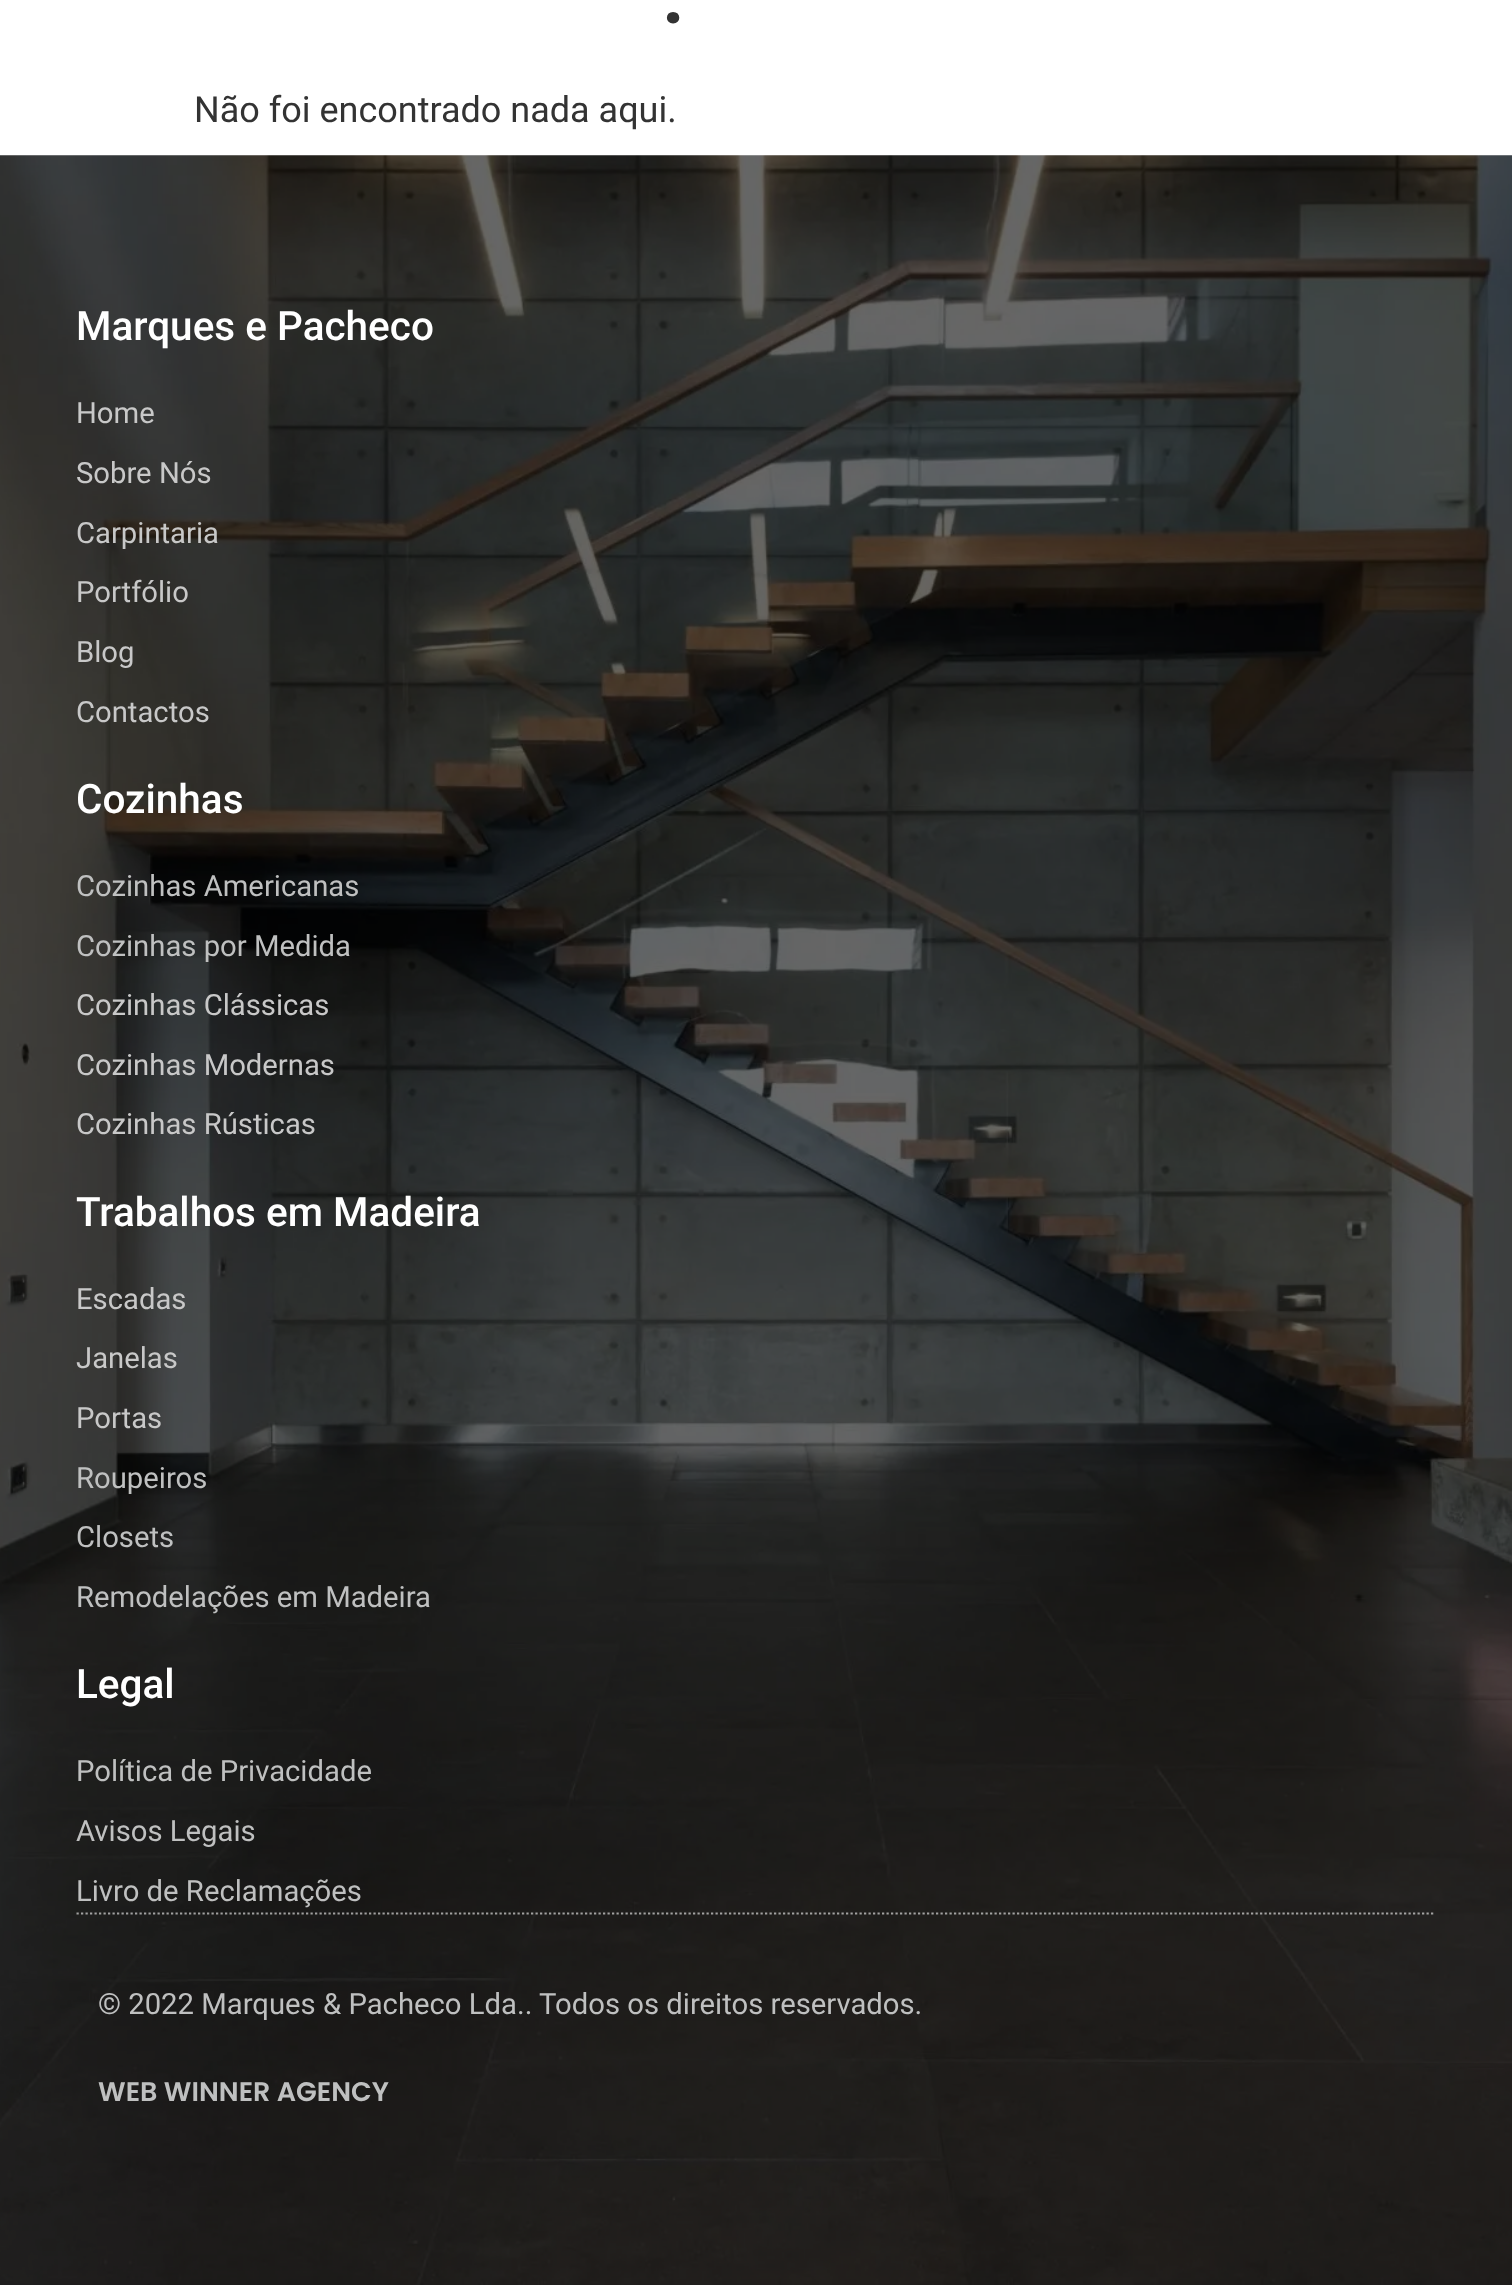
<?xml version="1.0" encoding="UTF-8"?>
<svg xmlns="http://www.w3.org/2000/svg" width="1512" height="2285">
    <rect width="100%" height="100%" fill="#FFFFFF"/>
    <text x="661" y="23" font-family="Roboto" font-size="90" font-weight="500" fill="#333333">.</text>
    <text x="194" y="122" font-family="Roboto" font-size="36" fill="#333333">Não foi encontrado nada aqui.</text>
    <image x="0" y="155" width="1512" height="2130" href="img_01.png"/>
    <text x="76" y="340" font-family="Roboto" font-size="40.5" font-weight="500" fill="#FFFFFF">Marques e Pacheco</text>
    <text x="76" y="423" font-family="Roboto" font-size="29.25" fill="#C8C8C8">Home</text>
    <text x="76" y="483" font-family="Roboto" font-size="29.25" fill="#C8C8C8">Sobre Nós</text>
    <text x="76" y="543" font-family="Roboto" font-size="29.25" fill="#C8C8C8">Carpintaria</text>
    <text x="76" y="602" font-family="Roboto" font-size="29.25" fill="#C8C8C8">Portfólio</text>
    <text x="76" y="662" font-family="Roboto" font-size="29.25" fill="#C8C8C8">Blog</text>
    <text x="76" y="722" font-family="Roboto" font-size="29.25" fill="#C8C8C8">Contactos</text>
    <text x="76" y="813" font-family="Roboto" font-size="40.5" font-weight="500" fill="#FFFFFF">Cozinhas</text>
    <text x="76" y="896" font-family="Roboto" font-size="29.25" fill="#BFC0C0">Cozinhas Americanas</text>
    <text x="76" y="956" font-family="Roboto" font-size="29.25" fill="#BFC0C0">Cozinhas por Medida</text>
    <text x="76" y="1015" font-family="Roboto" font-size="29.25" fill="#C8C8C8">Cozinhas Clássicas</text>
    <text x="76" y="1075" font-family="Roboto" font-size="29.25" fill="#C8C8C8">Cozinhas Modernas</text>
    <text x="76" y="1134" font-family="Roboto" font-size="29.25" fill="#C8C8C8">Cozinhas Rústicas</text>
    <text x="76" y="1226" font-family="Roboto" font-size="40.5" font-weight="500" fill="#FFFFFF">Trabalhos em Madeira</text>
    <text x="76" y="1309" font-family="Roboto" font-size="29.25" fill="#C8C8C8">Escadas</text>
    <text x="76" y="1368" font-family="Roboto" font-size="29.25" fill="#C8C8C8">Janelas</text>
    <text x="76" y="1428" font-family="Roboto" font-size="29.25" fill="#C8C8C8">Portas</text>
    <text x="76" y="1488" font-family="Roboto" font-size="29.25" fill="#BFC0C0">Roupeiros</text>
    <text x="76" y="1547" font-family="Roboto" font-size="29.25" fill="#BFC0C0">Closets</text>
    <text x="76" y="1607" font-family="Roboto" font-size="29.25" fill="#BFC0C0">Remodelações em Madeira</text>
    <text x="76" y="1698" font-family="Roboto" font-size="40.5" font-weight="500" fill="#FFFFFF">Legal</text>
    <text x="76" y="1781" font-family="Roboto" font-size="29.25" fill="#BFC0C0">Política de Privacidade</text>
    <text x="76" y="1841" font-family="Roboto" font-size="29.25" fill="#BFC0C0">Avisos Legais</text>
    <text x="76" y="1901" font-family="Roboto" font-size="29.25" fill="#BFC0C0">Livro de Reclamações</text>
    <path d="M 76.5 1913.5 H 1435.5" fill="none" stroke="#FFFFFF" stroke-opacity="0.59" stroke-width="2.2" stroke-dasharray="2.25 2.25"/>
    <text x="98" y="2014" font-family="Roboto" font-size="29.25" fill="#BFC0C0">© 2022 Marques &amp; Pacheco Lda.. Todos os direitos reservados.</text>
    <text x="98" y="2101" font-family="Poppins" font-size="27" font-weight="600" fill="#BFC0C0">WEB WINNER AGENCY</text>
</svg>
